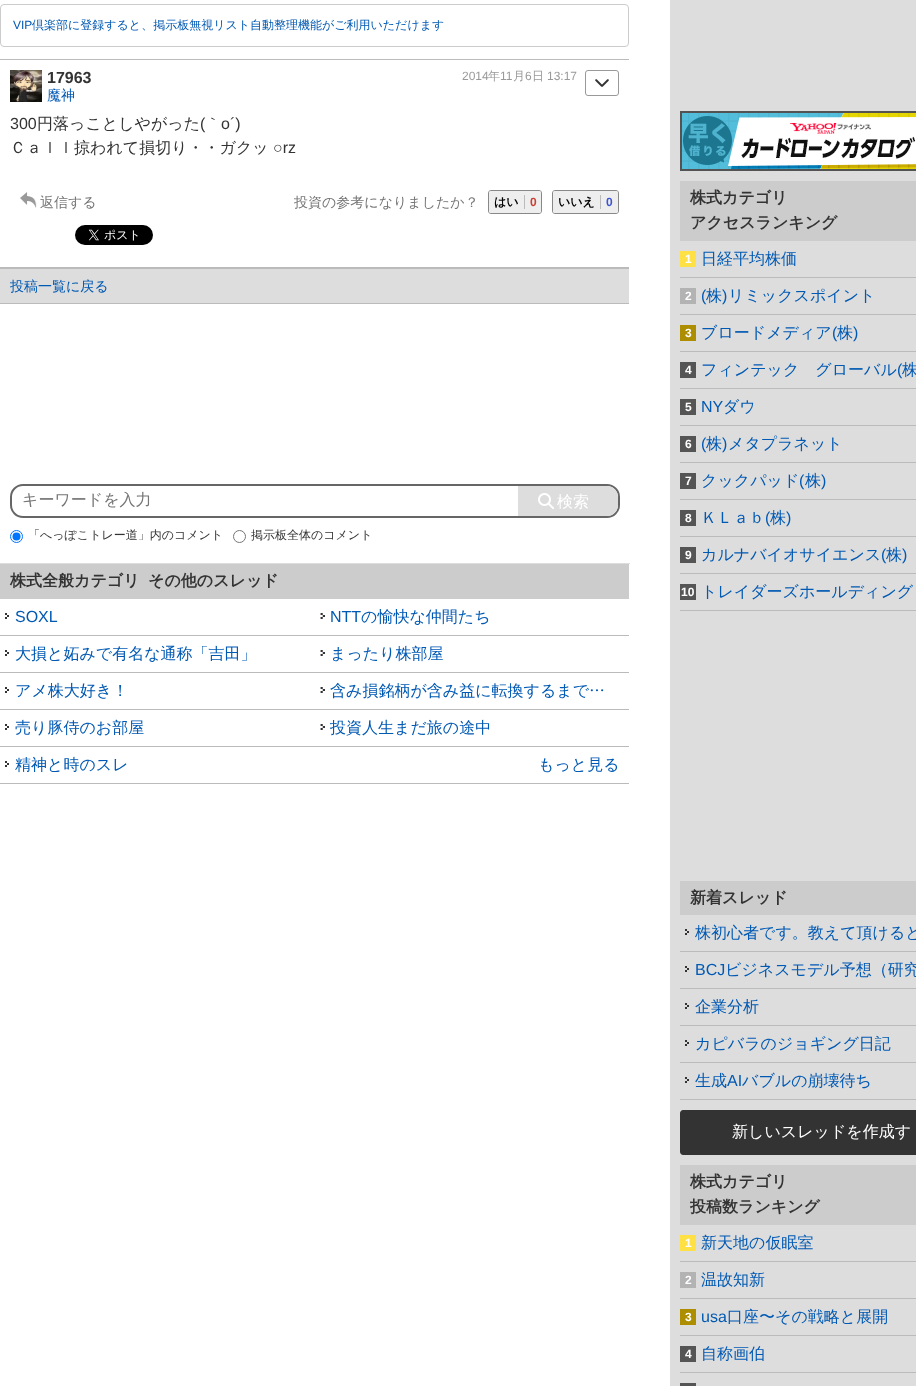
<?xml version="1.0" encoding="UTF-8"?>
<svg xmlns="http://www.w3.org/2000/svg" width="916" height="1386">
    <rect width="100%" height="100%" fill="#FFFFFF"/>
    <rect x="0.5" y="4.5" width="628" height="42" rx="3.5" fill="none" stroke="#CCCCCC"/>
    <text x="13" y="29" font-family="Liberation Sans" font-size="12" fill="#0059B3">VIP</text>
    <text x="32" y="29" font-family="WenQuanYi Zen Hei" font-size="12" font-weight="500" fill="#0059B3">倶楽部に登録すると、掲示板無視リスト自動整理機能がご利用いただけます</text>
    <rect x="0" y="59" width="629" height="1" fill="#BBBBBB"/>
    <text x="462" y="80" font-family="Liberation Sans" font-size="12" fill="#999999">2014</text>
    <text x="488" y="80" font-family="WenQuanYi Zen Hei" font-size="12" font-weight="500" fill="#999999">年</text>
    <text x="500" y="80" font-family="Liberation Sans" font-size="12" fill="#999999">11</text>
    <text x="513" y="80" font-family="WenQuanYi Zen Hei" font-size="12" font-weight="500" fill="#999999">月</text>
    <text x="525" y="80" font-family="Liberation Sans" font-size="12" fill="#999999">6</text>
    <text x="532" y="80" font-family="WenQuanYi Zen Hei" font-size="12" font-weight="500" fill="#999999">日</text>
    <text x="547" y="80" font-family="Liberation Sans" font-size="12" fill="#999999">13:17</text>
    <image x="10" y="70" width="32" height="32" href="img_01.png"/>
    <text x="47" y="100" font-family="WenQuanYi Zen Hei" font-size="14" font-weight="500" fill="#0059B3">魔神</text>
    <text x="47" y="83" font-family="Liberation Sans" font-size="16" font-weight="700" fill="#333333">17963</text>
    <image x="595" y="79" width="14" height="8" href="img_02.png"/>
    <rect x="585.5" y="70.5" width="33" height="25" rx="2.5" fill="none" stroke="#999999"/>
    <text x="10" y="129" font-family="Liberation Sans" font-size="16" fill="#333333">300</text>
    <text x="37" y="129" font-family="WenQuanYi Zen Hei" font-size="16" font-weight="500" fill="#333333">円落っことしやがった</text>
    <text x="200" y="129" font-family="Liberation Sans" font-size="16" fill="#333333">(</text>
    <text x="205" y="129" font-family="WenQuanYi Zen Hei" font-size="16" font-weight="500" fill="#333333">｀</text>
    <text x="221" y="129" font-family="Liberation Sans" font-size="16" fill="#333333">o´)</text>
    <text x="10" y="153" font-family="WenQuanYi Zen Hei" font-size="16" font-weight="500" fill="#333333">Ｃａｌｌ掠われて損切り・・ガクッ</text>
    <text x="273" y="153" font-family="Liberation Sans" font-size="16" fill="#333333">○rz</text>
    <image x="20" y="192" width="17" height="16" href="img_03.png"/>
    <text x="40" y="207" font-family="WenQuanYi Zen Hei" font-size="14" font-weight="500" fill="#757575">返信する</text>
    <text x="294" y="207" font-family="WenQuanYi Zen Hei" font-size="14" font-weight="500" fill="#757575">投資の参考になりましたか？</text>
    <rect x="488.5" y="190.5" width="53" height="23" rx="2.5" fill="none" stroke="#888888"/>
    <rect x="489" y="191" width="52" height="22" rx="2" fill="#EEEEEE"/>
    <text x="494" y="206" font-family="WenQuanYi Zen Hei" font-size="12" font-weight="700" fill="#000000">はい</text>
    <text x="530" y="206" font-family="Liberation Sans" font-size="12" font-weight="700" fill="#CB4035">0</text>
    <rect x="524" y="195" width="1" height="14" fill="#BBBBBB"/>
    <rect x="552.5" y="190.5" width="66" height="23" rx="2.5" fill="none" stroke="#888888"/>
    <rect x="553" y="191" width="65" height="22" rx="2" fill="#EEEEEE"/>
    <text x="558" y="206" font-family="WenQuanYi Zen Hei" font-size="12" font-weight="700" fill="#000000">いいえ</text>
    <text x="606" y="206" font-family="Liberation Sans" font-size="12" font-weight="700" fill="#3D56D6">0</text>
    <rect x="600" y="195" width="1" height="14" fill="#BBBBBB"/>
    <image x="75" y="225" width="78" height="20" href="img_04.png"/>
    <rect x="0" y="269" width="629" height="34" fill="#DDDDDD"/>
    <rect x="0" y="267" width="629" height="2" fill="#BBBBBB"/>
    <rect x="0" y="303" width="629" height="1" fill="#BBBBBB"/>
    <text x="10" y="291" font-family="WenQuanYi Zen Hei" font-size="14" font-weight="500" fill="#0059B3">投稿一覧に戻る</text>
    <rect x="0" y="563" width="630" height="1" fill="#DDDDDD"/>
    <rect x="11" y="485" width="608" height="32" rx="12" fill="none" stroke="#666666" stroke-width="2"/>
    <rect x="22" y="486" width="1" height="1" fill="#FFFFFF"/>
    <text x="22" y="505" font-family="WenQuanYi Zen Hei" font-size="16" font-weight="500" fill="#757575">キーワードを入力</text>
    <path d="M 518 486 H 607 C 613 486 618 491 618 497 V 505 C 618 511 613 516 607 516 H 518 Z" fill="#DDDDDD"/>
    <image x="538" y="493" width="16" height="16" href="img_05.png"/>
    <text x="557" y="507" font-family="WenQuanYi Zen Hei" font-size="16" font-weight="500" fill="#FFFFFF">検索</text>
    <circle cx="16.5" cy="536.5" r="6" fill="none" stroke="#0075FF"/>
    <circle cx="16.5" cy="536.5" r="4" fill="#0075FF"/>
    <text x="28" y="539" font-family="WenQuanYi Zen Hei" font-size="12" font-weight="500" fill="#333333">「へっぽこトレー道」内のコメント</text>
    <circle cx="239.5" cy="536.5" r="6" fill="none" stroke="#767676"/>
    <text x="251" y="539" font-family="WenQuanYi Zen Hei" font-size="12" font-weight="500" fill="#333333">掲示板全体のコメント</text>
    <rect x="0" y="564" width="629" height="35" fill="#CCCCCC"/>
    <text x="10" y="586" font-family="WenQuanYi Zen Hei" font-size="16" font-weight="700" fill="#333333">株式全般カテゴリ</text>
    <text x="148" y="586" font-family="WenQuanYi Zen Hei" font-size="16" font-weight="700" fill="#333333">その他のスレッド</text>
    <rect x="0" y="635" width="629" height="1" fill="#BBBBBB"/>
    <image x="5" y="613" width="4" height="6" href="img_06.png"/>
    <text x="15" y="622" font-family="Liberation Sans" font-size="16" fill="#0059B3">SOXL</text>
    <image x="320" y="613" width="5" height="6" href="img_07.png"/>
    <text x="330" y="622" font-family="Liberation Sans" font-size="16" fill="#0059B3">NTT</text>
    <text x="361" y="622" font-family="WenQuanYi Zen Hei" font-size="16" font-weight="500" fill="#0059B3">の愉快な仲間たち</text>
    <rect x="0" y="672" width="629" height="1" fill="#BBBBBB"/>
    <image x="5" y="650" width="4" height="6" href="img_06.png"/>
    <text x="15" y="659" font-family="WenQuanYi Zen Hei" font-size="16" font-weight="500" fill="#0059B3">大損と妬みで有名な通称「吉田」</text>
    <image x="320" y="650" width="5" height="6" href="img_07.png"/>
    <text x="330" y="659" font-family="WenQuanYi Zen Hei" font-size="16" font-weight="500" fill="#0059B3">まったり株部屋</text>
    <rect x="0" y="709" width="629" height="1" fill="#BBBBBB"/>
    <image x="5" y="687" width="4" height="6" href="img_06.png"/>
    <text x="15" y="696" font-family="WenQuanYi Zen Hei" font-size="16" font-weight="500" fill="#0059B3">アメ株大好き！</text>
    <image x="320" y="687" width="5" height="6" href="img_07.png"/>
    <text x="330" y="696" font-family="WenQuanYi Zen Hei" font-size="16" font-weight="500" fill="#0059B3">含み損銘柄が含み益に転換するまで…</text>
    <rect x="0" y="746" width="629" height="1" fill="#BBBBBB"/>
    <image x="5" y="724" width="4" height="6" href="img_06.png"/>
    <text x="15" y="733" font-family="WenQuanYi Zen Hei" font-size="16" font-weight="500" fill="#0059B3">売り豚侍のお部屋</text>
    <image x="320" y="724" width="5" height="6" href="img_07.png"/>
    <text x="330" y="733" font-family="WenQuanYi Zen Hei" font-size="16" font-weight="500" fill="#0059B3">投資人生まだ旅の途中</text>
    <rect x="0" y="783" width="629" height="1" fill="#BBBBBB"/>
    <image x="5" y="761" width="4" height="6" href="img_06.png"/>
    <text x="15" y="770" font-family="WenQuanYi Zen Hei" font-size="16" font-weight="500" fill="#0059B3">精神と時のスレ</text>
    <text x="538" y="770" font-family="WenQuanYi Zen Hei" font-size="16" font-weight="500" fill="#0059B3">もっと見る</text>
    <rect x="670" y="0" width="246" height="1386" fill="#DDDDDD"/>
    <image x="680" y="111" width="236" height="60" href="img_08.png"/>
    <rect x="680" y="181" width="236" height="60" fill="#CCCCCC"/>
    <text font-family="WenQuanYi Zen Hei" font-size="16" font-weight="700" fill="#333333">
        <tspan x="690" y="203">株式カテゴリ</tspan>
        <tspan x="690" y="228">アクセスランキング</tspan>
    </text>
    <rect x="680" y="277" width="236" height="1" fill="#BBBBBB"/>
    <rect x="680" y="251" width="16" height="16" fill="#FFE045"/>
    <text x="685" y="263" font-family="Liberation Sans" font-size="12" font-weight="700" fill="#FFFFFF">1</text>
    <text x="701" y="264" font-family="WenQuanYi Zen Hei" font-size="16" font-weight="500" fill="#0059B3">日経平均株価</text>
    <rect x="680" y="314" width="236" height="1" fill="#BBBBBB"/>
    <rect x="680" y="288" width="16" height="16" fill="#B3B3B3"/>
    <text x="685" y="300" font-family="Liberation Sans" font-size="12" font-weight="700" fill="#FFFFFF">2</text>
    <text x="701" y="301" font-family="Liberation Sans" font-size="16" fill="#0059B3">(</text>
    <text x="706" y="301" font-family="WenQuanYi Zen Hei" font-size="16" font-weight="500" fill="#0059B3">株</text>
    <text x="722" y="301" font-family="Liberation Sans" font-size="16" fill="#0059B3">)</text>
    <text x="728" y="301" font-family="WenQuanYi Zen Hei" font-size="16" font-weight="500" fill="#0059B3">リミックスポイント</text>
    <rect x="680" y="351" width="236" height="1" fill="#BBBBBB"/>
    <rect x="680" y="325" width="16" height="16" fill="#AC8E00"/>
    <text x="685" y="337" font-family="Liberation Sans" font-size="12" font-weight="700" fill="#FFFFFF">3</text>
    <text x="701" y="338" font-family="WenQuanYi Zen Hei" font-size="16" font-weight="500" fill="#0059B3">ブロードメディア</text>
    <text x="832" y="338" font-family="Liberation Sans" font-size="16" fill="#0059B3">(</text>
    <text x="837" y="338" font-family="WenQuanYi Zen Hei" font-size="16" font-weight="500" fill="#0059B3">株</text>
    <text x="853" y="338" font-family="Liberation Sans" font-size="16" fill="#0059B3">)</text>
    <rect x="680" y="388" width="236" height="1" fill="#BBBBBB"/>
    <rect x="680" y="362" width="16" height="16" fill="#555555"/>
    <text x="685" y="374" font-family="Liberation Sans" font-size="12" font-weight="700" fill="#FFFFFF">4</text>
    <text x="701" y="375" font-family="WenQuanYi Zen Hei" font-size="16" font-weight="500" fill="#0059B3">フィンテック　グローバル</text>
    <text x="897" y="375" font-family="Liberation Sans" font-size="16" fill="#0059B3">(</text>
    <text x="902" y="375" font-family="WenQuanYi Zen Hei" font-size="16" font-weight="500" fill="#0059B3">株</text>
    <rect x="680" y="425" width="236" height="1" fill="#BBBBBB"/>
    <rect x="680" y="399" width="16" height="16" fill="#555555"/>
    <text x="685" y="411" font-family="Liberation Sans" font-size="12" font-weight="700" fill="#FFFFFF">5</text>
    <text x="701" y="412" font-family="Liberation Sans" font-size="16" fill="#0059B3">NY</text>
    <text x="723" y="412" font-family="WenQuanYi Zen Hei" font-size="16" font-weight="500" fill="#0059B3">ダウ</text>
    <rect x="680" y="462" width="236" height="1" fill="#BBBBBB"/>
    <rect x="680" y="436" width="16" height="16" fill="#555555"/>
    <text x="685" y="448" font-family="Liberation Sans" font-size="12" font-weight="700" fill="#FFFFFF">6</text>
    <text x="701" y="449" font-family="Liberation Sans" font-size="16" fill="#0059B3">(</text>
    <text x="706" y="449" font-family="WenQuanYi Zen Hei" font-size="16" font-weight="500" fill="#0059B3">株</text>
    <text x="722" y="449" font-family="Liberation Sans" font-size="16" fill="#0059B3">)</text>
    <text x="728" y="449" font-family="WenQuanYi Zen Hei" font-size="16" font-weight="500" fill="#0059B3">メタプラネット</text>
    <rect x="680" y="499" width="236" height="1" fill="#BBBBBB"/>
    <rect x="680" y="473" width="16" height="16" fill="#555555"/>
    <text x="685" y="485" font-family="Liberation Sans" font-size="12" font-weight="700" fill="#FFFFFF">7</text>
    <text x="701" y="486" font-family="WenQuanYi Zen Hei" font-size="16" font-weight="500" fill="#0059B3">クックパッド</text>
    <text x="799" y="486" font-family="Liberation Sans" font-size="16" fill="#0059B3">(</text>
    <text x="805" y="486" font-family="WenQuanYi Zen Hei" font-size="16" font-weight="500" fill="#0059B3">株</text>
    <text x="821" y="486" font-family="Liberation Sans" font-size="16" fill="#0059B3">)</text>
    <rect x="680" y="536" width="236" height="1" fill="#BBBBBB"/>
    <rect x="680" y="510" width="16" height="16" fill="#555555"/>
    <text x="685" y="522" font-family="Liberation Sans" font-size="12" font-weight="700" fill="#FFFFFF">8</text>
    <text x="701" y="523" font-family="WenQuanYi Zen Hei" font-size="16" font-weight="500" fill="#0059B3">ＫＬａｂ</text>
    <text x="765" y="523" font-family="Liberation Sans" font-size="16" fill="#0059B3">(</text>
    <text x="770" y="523" font-family="WenQuanYi Zen Hei" font-size="16" font-weight="500" fill="#0059B3">株</text>
    <text x="786" y="523" font-family="Liberation Sans" font-size="16" fill="#0059B3">)</text>
    <rect x="680" y="573" width="236" height="1" fill="#BBBBBB"/>
    <rect x="680" y="547" width="16" height="16" fill="#555555"/>
    <text x="685" y="559" font-family="Liberation Sans" font-size="12" font-weight="700" fill="#FFFFFF">9</text>
    <text x="701" y="560" font-family="WenQuanYi Zen Hei" font-size="16" font-weight="500" fill="#0059B3">カルナバイオサイエンス</text>
    <text x="881" y="560" font-family="Liberation Sans" font-size="16" fill="#0059B3">(</text>
    <text x="886" y="560" font-family="WenQuanYi Zen Hei" font-size="16" font-weight="500" fill="#0059B3">株</text>
    <text x="902" y="560" font-family="Liberation Sans" font-size="16" fill="#0059B3">)</text>
    <rect x="680" y="610" width="236" height="1" fill="#BBBBBB"/>
    <rect x="680" y="584" width="16" height="16" fill="#555555"/>
    <text x="681" y="596" font-family="Liberation Sans" font-size="12" font-weight="700" fill="#FFFFFF">10</text>
    <text x="701" y="597" font-family="WenQuanYi Zen Hei" font-size="16" font-weight="500" fill="#0059B3">トレイダーズホールディング</text>
    <rect x="680" y="881" width="236" height="34" fill="#CCCCCC"/>
    <text x="690" y="903" font-family="WenQuanYi Zen Hei" font-size="16" font-weight="700" fill="#333333">新着スレッド</text>
    <rect x="680" y="951" width="236" height="1" fill="#BBBBBB"/>
    <image x="685" y="929" width="4" height="6" href="img_09.png"/>
    <text x="695" y="938" font-family="WenQuanYi Zen Hei" font-size="16" font-weight="500" fill="#0059B3">株初心者です。教えて頂けると</text>
    <rect x="680" y="988" width="236" height="1" fill="#BBBBBB"/>
    <image x="685" y="966" width="4" height="6" href="img_09.png"/>
    <text x="695" y="975" font-family="Liberation Sans" font-size="16" fill="#0059B3">BCJ</text>
    <text x="725" y="975" font-family="WenQuanYi Zen Hei" font-size="16" font-weight="500" fill="#0059B3">ビジネスモデル予想（研究</text>
    <rect x="680" y="1025" width="236" height="1" fill="#BBBBBB"/>
    <image x="685" y="1003" width="4" height="6" href="img_09.png"/>
    <text x="695" y="1012" font-family="WenQuanYi Zen Hei" font-size="16" font-weight="500" fill="#0059B3">企業分析</text>
    <rect x="680" y="1062" width="236" height="1" fill="#BBBBBB"/>
    <image x="685" y="1040" width="4" height="6" href="img_09.png"/>
    <text x="695" y="1049" font-family="WenQuanYi Zen Hei" font-size="16" font-weight="500" fill="#0059B3">カピバラのジョギング日記</text>
    <rect x="680" y="1099" width="236" height="1" fill="#BBBBBB"/>
    <image x="685" y="1077" width="4" height="6" href="img_09.png"/>
    <text x="695" y="1086" font-family="WenQuanYi Zen Hei" font-size="16" font-weight="500" fill="#0059B3">生成</text>
    <text x="727" y="1086" font-family="Liberation Sans" font-size="16" fill="#0059B3">AI</text>
    <text x="742" y="1086" font-family="WenQuanYi Zen Hei" font-size="16" font-weight="500" fill="#0059B3">バブルの崩壊待ち</text>
    <path d="M 683 1110 H 916 V 1155 H 683 C 681.5 1155 680 1153.5 680 1152 V 1113 C 680 1111.5 681.5 1110 683 1110 Z" fill="#333333"/>
    <text x="732" y="1137" font-family="WenQuanYi Zen Hei" font-size="16" font-weight="500" fill="#FFFFFF">新しいスレッドを作成す</text>
    <rect x="680" y="1165" width="236" height="60" fill="#CCCCCC"/>
    <text font-family="WenQuanYi Zen Hei" font-size="16" font-weight="700" fill="#333333">
        <tspan x="690" y="1187">株式カテゴリ</tspan>
        <tspan x="690" y="1212">投稿数ランキング</tspan>
    </text>
    <rect x="680" y="1261" width="236" height="1" fill="#BBBBBB"/>
    <rect x="680" y="1235" width="16" height="16" fill="#FFE045"/>
    <text x="685" y="1247" font-family="Liberation Sans" font-size="12" font-weight="700" fill="#FFFFFF">1</text>
    <text x="701" y="1248" font-family="WenQuanYi Zen Hei" font-size="16" font-weight="500" fill="#0059B3">新天地の仮眠室</text>
    <rect x="680" y="1298" width="236" height="1" fill="#BBBBBB"/>
    <rect x="680" y="1272" width="16" height="16" fill="#B3B3B3"/>
    <text x="685" y="1284" font-family="Liberation Sans" font-size="12" font-weight="700" fill="#FFFFFF">2</text>
    <text x="701" y="1285" font-family="WenQuanYi Zen Hei" font-size="16" font-weight="500" fill="#0059B3">温故知新</text>
    <rect x="680" y="1335" width="236" height="1" fill="#BBBBBB"/>
    <rect x="680" y="1309" width="16" height="16" fill="#AC8E00"/>
    <text x="685" y="1321" font-family="Liberation Sans" font-size="12" font-weight="700" fill="#FFFFFF">3</text>
    <text x="701" y="1322" font-family="Liberation Sans" font-size="16" fill="#0059B3">usa</text>
    <text x="727" y="1322" font-family="WenQuanYi Zen Hei" font-size="16" font-weight="500" fill="#0059B3">口座〜その戦略と展開</text>
    <rect x="680" y="1372" width="236" height="1" fill="#BBBBBB"/>
    <rect x="680" y="1346" width="16" height="16" fill="#555555"/>
    <text x="685" y="1358" font-family="Liberation Sans" font-size="12" font-weight="700" fill="#FFFFFF">4</text>
    <text x="701" y="1359" font-family="WenQuanYi Zen Hei" font-size="16" font-weight="500" fill="#0059B3">自称画伯</text>
    <rect x="680" y="1383" width="16" height="3" fill="#555555"/>
</svg>
